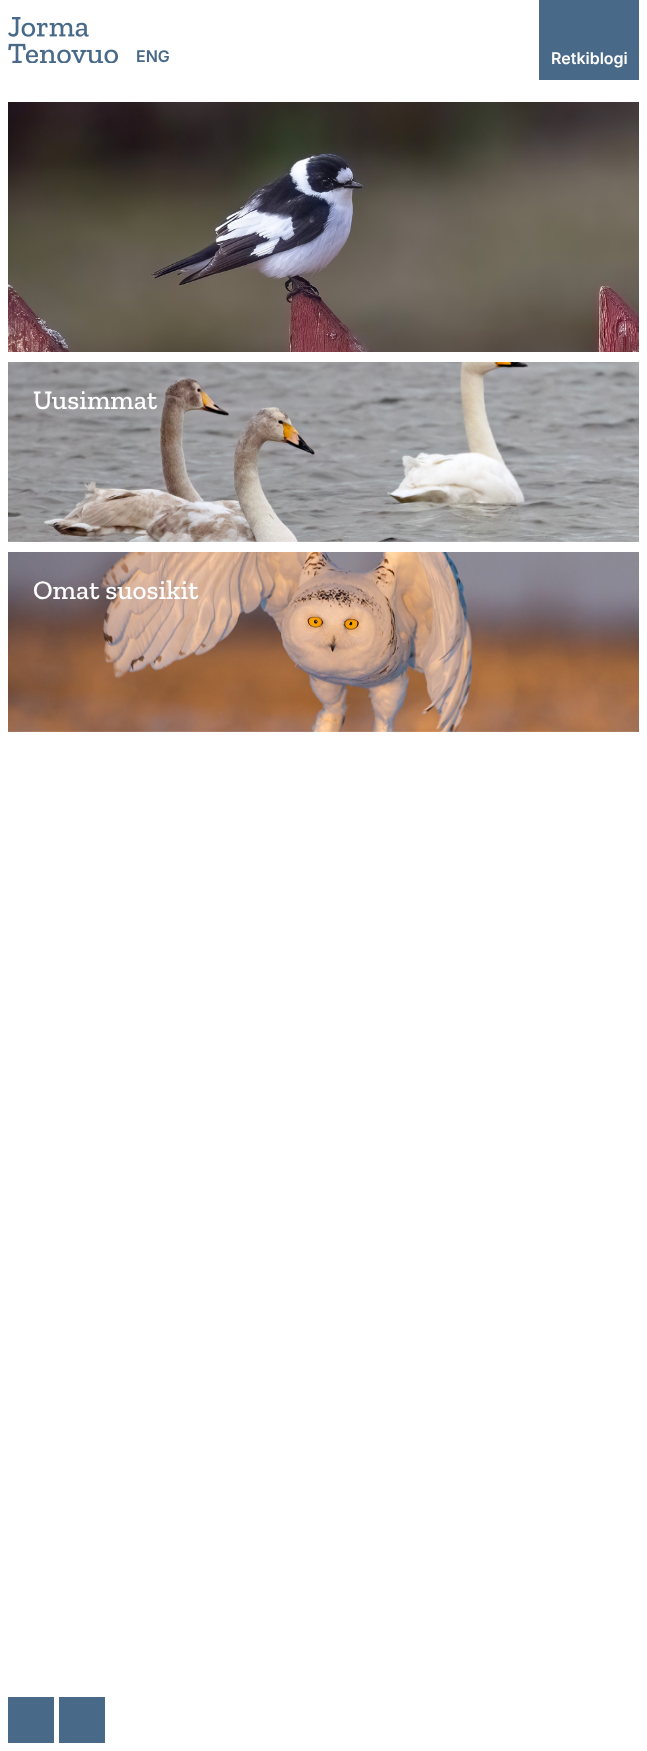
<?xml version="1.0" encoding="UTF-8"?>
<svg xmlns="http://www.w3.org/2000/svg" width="647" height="1751">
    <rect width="100%" height="100%" fill="#FFFFFF"/>
    <image x="8" y="17" width="110" height="46" href="img_01.png"/>
    <text x="136" y="62" font-family="Inter" font-size="16" font-weight="600" fill="#496989">ENG</text>
    <rect x="539" y="0" width="100" height="80" fill="#496989"/>
    <text x="551" y="64" font-family="Inter" font-size="16" font-weight="600" fill="#FFFFFF">Retkiblogi</text>
    <image x="8" y="102" width="631" height="250" href="img_02.png"/>
    <image x="8" y="362" width="631" height="180" href="img_03.png"/>
    <text x="33" y="409" font-family="Zilla Slab" font-size="27" font-weight="500" fill="#FFFFFF">Uusimmat</text>
    <image x="8" y="552" width="631" height="180" href="img_04.png"/>
    <text x="33" y="599" font-family="Zilla Slab" font-size="27" font-weight="500" fill="#FFFFFF">Omat suosikit</text>
    <rect x="8" y="1697" width="46" height="46" fill="#496989"/>
    <rect x="59" y="1697" width="46" height="46" fill="#496989"/>
</svg>
